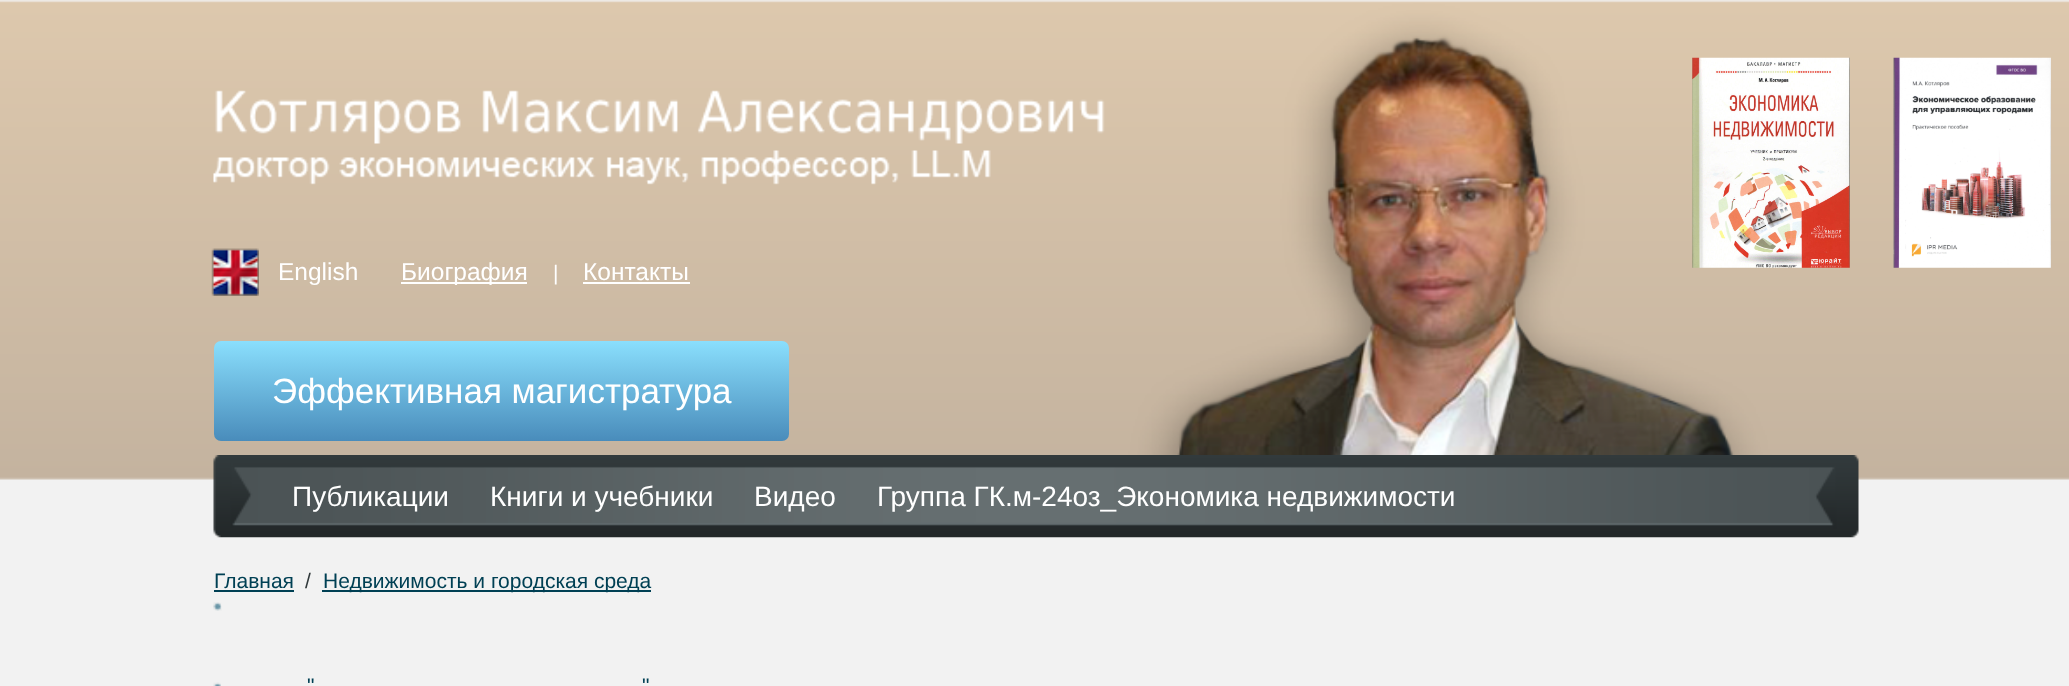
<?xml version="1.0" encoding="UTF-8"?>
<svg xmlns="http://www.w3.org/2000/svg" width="2069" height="686">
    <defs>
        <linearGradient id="g1" gradientUnits="userSpaceOnUse" x1="501" y1="341" x2="501" y2="441"><stop offset="0" stop-color="#8ADFFD"/><stop offset="1" stop-color="#498CBB"/></linearGradient>
    </defs>
    <rect width="100%" height="100%" fill="#F2F2F2"/>
    <image x="0" y="0" width="2069" height="480" href="img_01.png"/>
    <image x="213" y="90" width="892" height="95" href="img_02.png"/>
    <image x="1692" y="57" width="158" height="211" href="img_03.png"/>
    <image x="1893" y="57" width="158" height="211" href="img_04.png"/>
    <image x="211" y="248" width="48" height="48" href="img_05.png"/>
    <text x="278" y="280" font-family="Liberation Sans" font-size="24.5" fill="#FFFFFF">English</text>
    <rect x="401" y="282" width="126" height="2" fill="#FFFFFF"/>
    <text x="401" y="280" font-family="Liberation Sans" font-size="24.5" fill="#FFFFFF">Биография</text>
    <text x="553" y="280" font-family="Liberation Sans" font-size="21" fill="#FFFFFF">|</text>
    <text x="583" y="280" font-family="Liberation Sans" font-size="24.5" fill="#FFFFFF">Контакты</text>
    <rect x="583" y="282" width="107" height="2" fill="#FFFFFF"/>
    <rect x="214" y="341" width="575" height="100" rx="7" fill="url(#g1)"/>
    <text x="272" y="403" font-family="Liberation Sans" font-size="35" fill="#FFFFFF">Эффективная магистратура</text>
    <image x="213" y="455" width="1646" height="83" href="img_06.png"/>
    <text x="292" y="506" font-family="Liberation Sans" font-size="28" fill="#FFFFFF">Публикации</text>
    <text x="490" y="506" font-family="Liberation Sans" font-size="28" fill="#FFFFFF">Книги и учебники</text>
    <text x="754" y="506" font-family="Liberation Sans" font-size="28" fill="#FFFFFF">Видео</text>
    <text x="877" y="506" font-family="Liberation Sans" font-size="28" fill="#FFFFFF">Группа ГК.м-24оз_Экономика недвижимости</text>
    <text x="214" y="588" font-family="Liberation Sans" font-size="21" fill="#004054">Главная</text>
    <rect x="214" y="590" width="80" height="2" fill="#004054"/>
    <text x="305" y="588" font-family="Liberation Sans" font-size="21" fill="#31393B">/</text>
    <rect x="322" y="590" width="329" height="2" fill="#004054"/>
    <text x="323" y="588" font-family="Liberation Sans" font-size="21" fill="#004054">Недвижимость и городская среда</text>
    <image x="213" y="602" width="9" height="9" href="img_07.png"/>
    <image x="213" y="682" width="8" height="4" href="img_08.png"/>
    <text x="307" y="693" font-family="Liberation Sans" font-size="21" fill="#004054">"</text>
    <text x="642" y="693" font-family="Liberation Sans" font-size="21" fill="#004054">"</text>
</svg>
